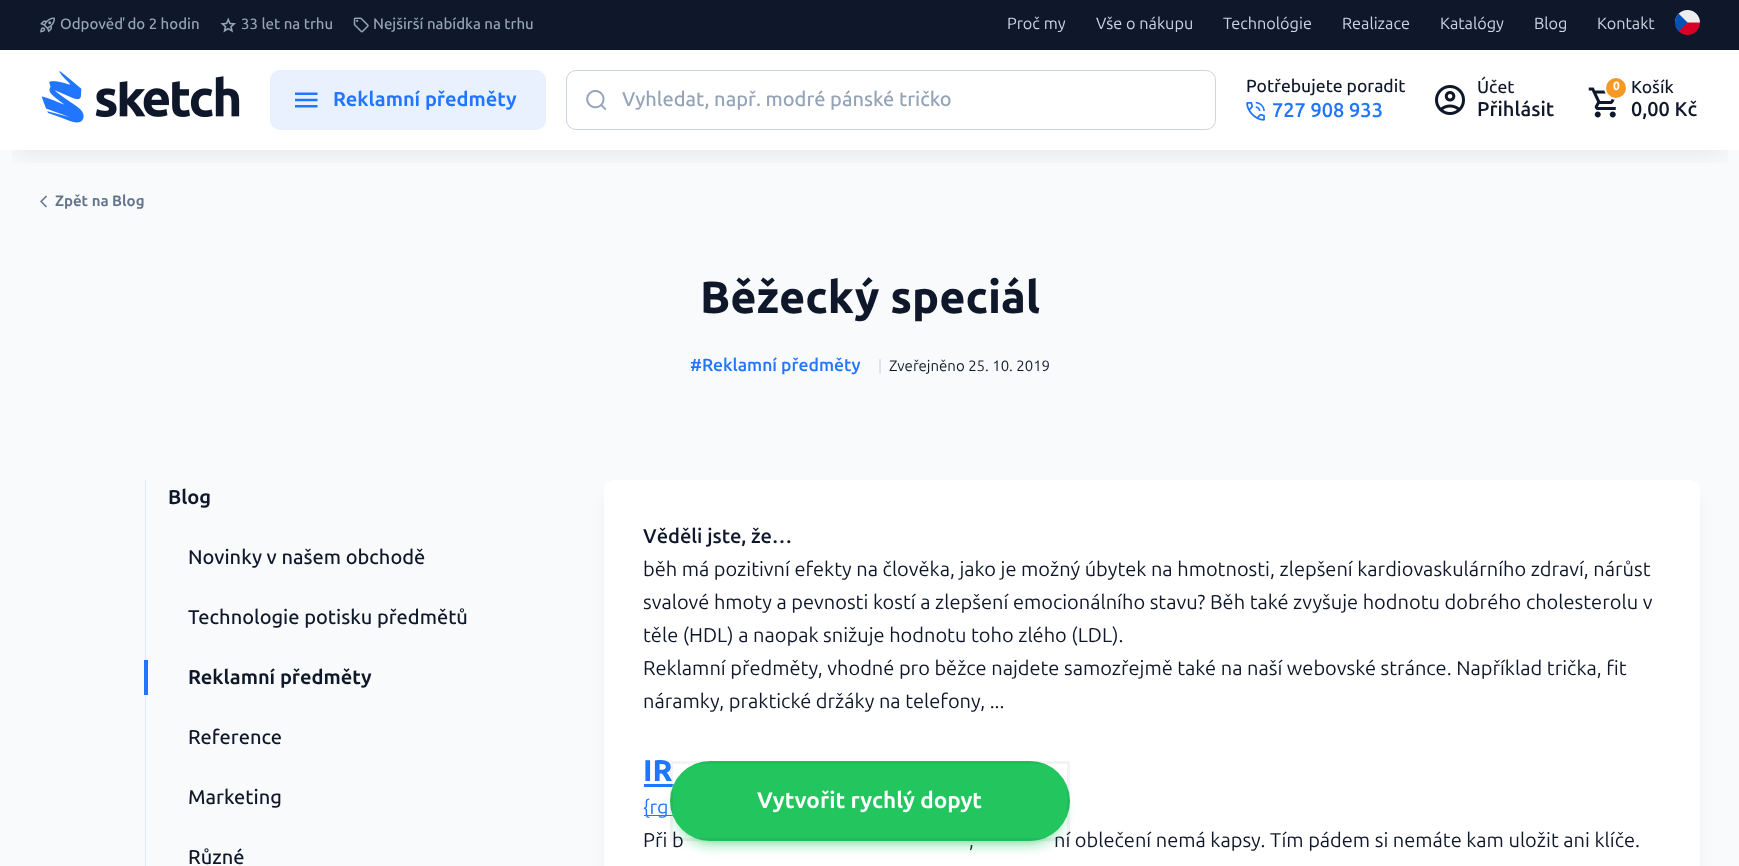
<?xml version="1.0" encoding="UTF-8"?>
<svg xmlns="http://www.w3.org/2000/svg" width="1739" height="866">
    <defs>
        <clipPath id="clip1"><rect x="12" y="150" width="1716" height="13"/></clipPath>
        <filter id="blur1" x="-50%" y="-200%" width="200%" height="500%"><feGaussianBlur stdDeviation="15"/></filter>
        <clipPath id="clip2"><rect x="1584" y="76" width="116" height="48"/></clipPath>
        <filter id="blur2" x="-50%" y="-200%" width="200%" height="500%"><feGaussianBlur stdDeviation="10"/></filter>
        <filter id="blur3" x="-50%" y="-200%" width="200%" height="500%"><feGaussianBlur stdDeviation="7.5"/></filter>
    </defs>
    <rect width="100%" height="100%" fill="#FFFFFF"/>
    <rect x="0" y="150" width="1739" height="716" fill="#F8FAFC"/>
    <image x="40" y="195" width="7" height="13" href="img_11.png"/>
    <g clip-path="url(#clip1)">
        <rect x="15" y="80" width="1710" height="70" fill="#0F172A" fill-opacity="0.1" filter="url(#blur1)"/>
    </g>
    <rect x="0" y="0" width="1739" height="50" fill="#0F172A"/>
    <image x="40" y="17" width="15" height="16" href="img_01.png"/>
    <text x="60" y="29" font-family="Ubuntu Sans" font-size="15" font-weight="500" fill="#94A3B8">Odpověď do 2 hodin</text>
    <image x="220" y="17" width="16" height="16" href="img_02.png"/>
    <text x="241" y="29" font-family="Ubuntu Sans" font-size="15" font-weight="500" fill="#94A3B8">33 let na trhu</text>
    <image x="353" y="17" width="16" height="16" href="img_03.png"/>
    <text x="373" y="29" font-family="Ubuntu Sans" font-size="15" font-weight="500" fill="#94A3B8">Nejširší nabídka na trhu</text>
    <text x="1007" y="29" font-family="Ubuntu Sans" font-size="16.25" fill="#CBD5E1">Proč my</text>
    <text x="1096" y="29" font-family="Ubuntu Sans" font-size="16.25" fill="#CBD5E1">Vše o nákupu</text>
    <text x="1223" y="29" font-family="Ubuntu Sans" font-size="16.25" fill="#CBD5E1">Technológie</text>
    <text x="1342" y="29" font-family="Ubuntu Sans" font-size="16.25" fill="#CBD5E1">Realizace</text>
    <text x="1440" y="29" font-family="Ubuntu Sans" font-size="16.25" fill="#CBD5E1">Katalógy</text>
    <text x="1534" y="29" font-family="Ubuntu Sans" font-size="16.25" fill="#CBD5E1">Blog</text>
    <text x="1597" y="29" font-family="Ubuntu Sans" font-size="16.25" fill="#CBD5E1">Kontakt</text>
    <image x="1675" y="10" width="25" height="25" href="img_04.png"/>
    <image x="41" y="71" width="199" height="52" href="img_05.png"/>
    <rect x="270" y="70" width="276" height="60" rx="10" fill="#E9F1FF"/>
    <image x="295" y="92" width="23" height="16" href="img_06.png"/>
    <text x="333" y="106" font-family="Ubuntu Sans" font-size="20" font-weight="700" fill="#2176FF">Reklamní předměty</text>
    <rect x="566.5" y="70.5" width="649" height="59" rx="9.5" fill="none" stroke="#CBD5E1"/>
    <image x="586" y="90" width="21" height="20" href="img_07.png"/>
    <text x="622" y="106" font-family="Ubuntu Sans" font-size="20" font-weight="500" fill="#94A3B8">Vyhledat, např. modré pánské tričko</text>
    <text x="1246" y="92" font-family="Ubuntu Sans" font-size="17.5" font-weight="500" fill="#0F172A">Potřebujete poradit</text>
    <image x="1246" y="101" width="19" height="20" href="img_08.png"/>
    <text x="1272" y="117" font-family="Ubuntu Sans" font-size="20" font-weight="600" fill="#2176FF">727 908 933</text>
    <image x="1435" y="85" width="30" height="30" href="img_09.png"/>
    <text x="1477" y="93" font-family="Ubuntu Sans" font-size="17.5" font-weight="500" fill="#0F172A">Účet</text>
    <text x="1477" y="116" font-family="Ubuntu Sans" font-size="20" font-weight="600" fill="#0F172A">Přihlásit</text>
    <image x="1588" y="87" width="28" height="31" href="img_10.png"/>
    <g clip-path="url(#clip2)">
        <circle cx="1616.5" cy="87.5" r="11" fill="none" stroke="#FFFFFF" stroke-width="3"/>
    </g>
    <circle cx="1616" cy="88" r="10" fill="#F79824"/>
    <text x="1613" y="90" font-family="Ubuntu Sans" font-size="12" font-weight="800" letter-spacing="-1" fill="#FFFFFF">0</text>
    <text x="1631" y="93" font-family="Ubuntu Sans" font-size="17.5" font-weight="500" fill="#0F172A">Košík</text>
    <text x="1631" y="116" font-family="Ubuntu Sans" font-size="20" font-weight="600" fill="#0F172A">0,00 Kč</text>
    <text x="55" y="206" font-family="Ubuntu Sans" font-size="15" font-weight="700" fill="#64748B">Zpět na Blog</text>
    <text x="700" y="313" font-family="Ubuntu Sans" font-size="45" font-weight="800" fill="#0F172A">Běžecký speciál</text>
    <text x="690" y="371" font-family="Ubuntu Sans" font-size="17.5" font-weight="600" fill="#2176FF">#Reklamní předměty</text>
    <text x="878" y="371" font-family="Ubuntu Sans" font-size="15" fill="#CBD5E1">|</text>
    <text x="889" y="371" font-family="Ubuntu Sans" font-size="15" fill="#0F172A">Zveřejněno 25. 10. 2019</text>
    <rect x="145" y="480" width="1" height="386" fill="#E2E8F0"/>
    <text x="168" y="504" font-family="Ubuntu Sans" font-size="20" font-weight="700" fill="#0F172A">Blog</text>
    <text x="188" y="564" font-family="Ubuntu Sans" font-size="20" font-weight="500" fill="#0F172A">Novinky v našem obchodě</text>
    <text x="188" y="624" font-family="Ubuntu Sans" font-size="20" font-weight="500" fill="#0F172A">Technologie potisku předmětů</text>
    <rect x="144" y="660" width="4" height="35" fill="#2176FF"/>
    <text x="188" y="684" font-family="Ubuntu Sans" font-size="20" font-weight="700" fill="#0F172A">Reklamní předměty</text>
    <text x="188" y="744" font-family="Ubuntu Sans" font-size="20" font-weight="500" fill="#0F172A">Reference</text>
    <text x="188" y="804" font-family="Ubuntu Sans" font-size="20" font-weight="500" fill="#0F172A">Marketing</text>
    <text x="188" y="864" font-family="Ubuntu Sans" font-size="20" font-weight="500" fill="#0F172A">Různé</text>
    <rect x="614" y="500" width="1076" height="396" fill="#0F172A" fill-opacity="0.15" filter="url(#blur2)"/>
    <rect x="604" y="480" width="1096" height="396" rx="10" fill="#FFFFFF"/>
    <text x="643" y="543" font-family="Ubuntu Sans" font-size="20" font-weight="600" fill="#0F172A">Věděli jste, že…</text>
    <text font-family="Ubuntu Sans" font-size="20" fill="#0F172A">
        <tspan x="643" y="576">běh má pozitivní efekty na člověka, jako je možný úbytek na hmotnosti, zlepšení kardiovaskulárního zdraví, nárůst</tspan>
        <tspan x="643" y="609">svalové hmoty a pevnosti kostí a zlepšení emocionálního stavu? Běh také zvyšuje hodnotu dobrého cholesterolu v</tspan>
        <tspan x="643" y="642">těle (HDL) a naopak snižuje hodnotu toho zlého (LDL).</tspan>
        <tspan x="643" y="675">Reklamní předměty, vhodné pro běžce najdete samozřejmě také na naší webovské stránce. Například trička, fit</tspan>
        <tspan x="643" y="708">náramky, praktické držáky na telefony, ...</tspan>
    </text>
    <text x="643" y="781" font-family="Ubuntu Sans" font-size="30" font-weight="800" fill="#2176FF">IR</text>
    <rect x="644" y="784" width="30" height="3" fill="#2176FF"/>
    <rect x="644" y="815" width="29" height="1" fill="#2176FF"/>
    <text x="643" y="814" font-family="Ubuntu Sans" font-size="20" fill="#2176FF">{rg</text>
    <text x="643" y="847" font-family="Ubuntu Sans" font-size="20" fill="#0F172A">Při b</text>
    <text x="969" y="847" font-family="Ubuntu Sans" font-size="20" fill="#0F172A">,</text>
    <text x="1054" y="847" font-family="Ubuntu Sans" font-size="20" fill="#0F172A">ní oblečení nemá kapsy. Tím pádem si nemáte kam uložit ani klíče.</text>
    <rect x="669.5" y="760.5" width="401" height="82" rx="41" fill="none" stroke="#FFFFFF" stroke-opacity="0.5"/>
    <rect x="680" y="781" width="380" height="60" rx="30" fill="#22C55E" fill-opacity="0.85" filter="url(#blur3)"/>
    <rect x="670" y="761" width="400" height="80" rx="40" fill="#22C55E"/>
    <rect x="671.5" y="762.5" width="397" height="77" fill="none" stroke="#0F172A" stroke-opacity="0.05" stroke-width="3"/>
    <text x="757" y="808" font-family="Ubuntu Sans" font-size="22.5" font-weight="700" fill="#FFFFFF">Vytvořit rychlý dopyt</text>
</svg>
